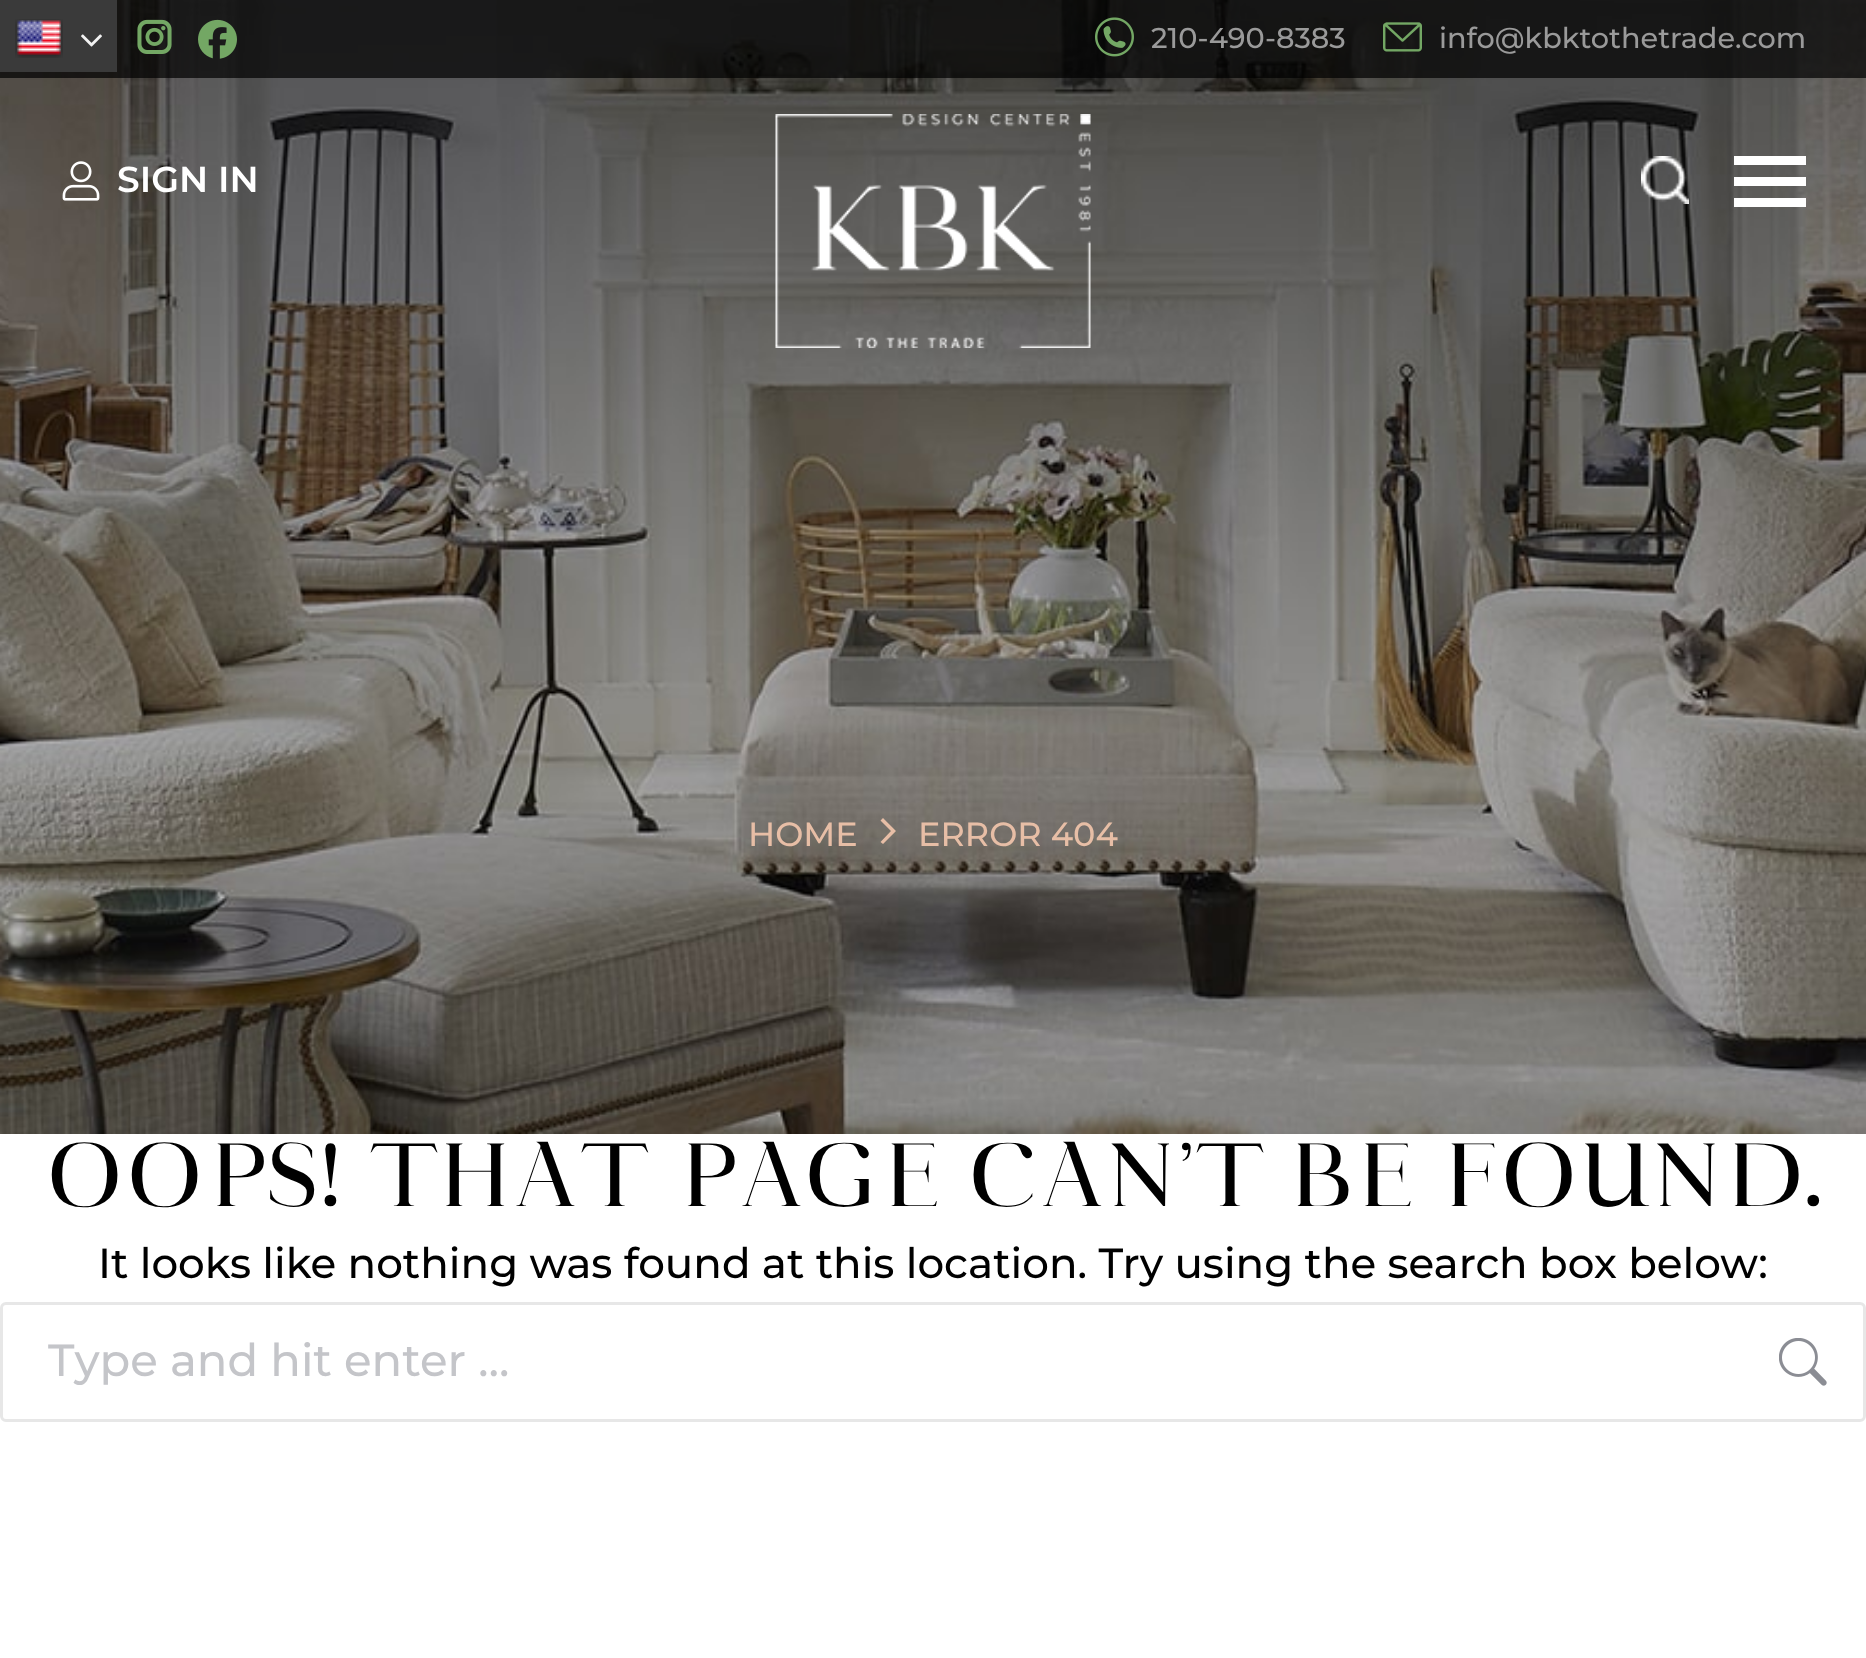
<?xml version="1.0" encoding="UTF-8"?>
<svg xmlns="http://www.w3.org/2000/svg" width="1866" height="1658">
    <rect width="100%" height="100%" fill="#FFFFFF"/>
    <image x="0" y="0" width="1866" height="1134" href="img_10.png"/>
    <rect x="0" y="0" width="1866" height="78" fill="#000000" fill-opacity="0.7"/>
    <rect x="0" y="0" width="117" height="72" fill="#3A3A3A"/>
    <image x="15" y="19" width="48" height="39" href="img_01.png"/>
    <image x="81" y="34" width="21" height="13" href="img_02.png"/>
    <image x="137" y="19" width="35" height="35" href="img_03.png"/>
    <image x="198" y="19" width="39" height="40" href="img_04.png"/>
    <image x="1095" y="17" width="39" height="40" href="img_05.png"/>
    <text x="1151" y="48" font-family="Montserrat" font-size="28.75" font-weight="500" fill="#9A9A9A">210-490-8383</text>
    <image x="1383" y="22" width="39" height="30" href="img_06.png"/>
    <text x="1439" y="48" font-family="Montserrat" font-size="28.75" font-weight="500" fill="#9A9A9A">info@kbktothetrade.com</text>
    <image x="62" y="161" width="38" height="40" href="img_07.png"/>
    <text x="117" y="192" font-family="Montserrat" font-size="36" font-weight="600" fill="#FFFFFF">SIGN IN</text>
    <image x="1641" y="156" width="48" height="48" href="img_08.png"/>
    <image x="775" y="114" width="316" height="234" href="img_09.png"/>
    <rect x="1734" y="156" width="72" height="9" fill="#FFFFFF"/>
    <rect x="1734" y="177" width="72" height="9" fill="#FFFFFF"/>
    <rect x="1734" y="198" width="72" height="9" fill="#FFFFFF"/>
    <text x="748" y="846" font-family="Montserrat" font-size="33.5" font-weight="500" fill="#E7BEA6">HOME</text>
    <path d="M 891 831 L 880.5 820.5 L 883 818 L 896 831 L 883 844 L 880.5 842 Z" fill="#E7BEA6"/>
    <text x="918" y="846" font-family="Montserrat" font-size="33.5" font-weight="500" fill="#E7BEA6">ERROR 404</text>
    <text x="45" y="1206" font-family="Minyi" font-size="90" fill="#000000">OOPS! THAT PAGE CAN’T BE FOUND.</text>
    <text x="98" y="1278" font-family="Montserrat" font-size="42" font-weight="500" fill="#000000">It looks like nothing was found at this location. Try using the search box below:</text>
    <rect x="1.5" y="1303.5" width="1863" height="117" rx="4.5" fill="none" stroke="#E7E7E7" stroke-width="3"/>
    <text x="48" y="1376" font-family="Montserrat" font-size="45" font-weight="500" fill="#C4C5C9">Type and hit enter …</text>
    <image x="1779" y="1338" width="48" height="48" href="img_11.png"/>
</svg>
